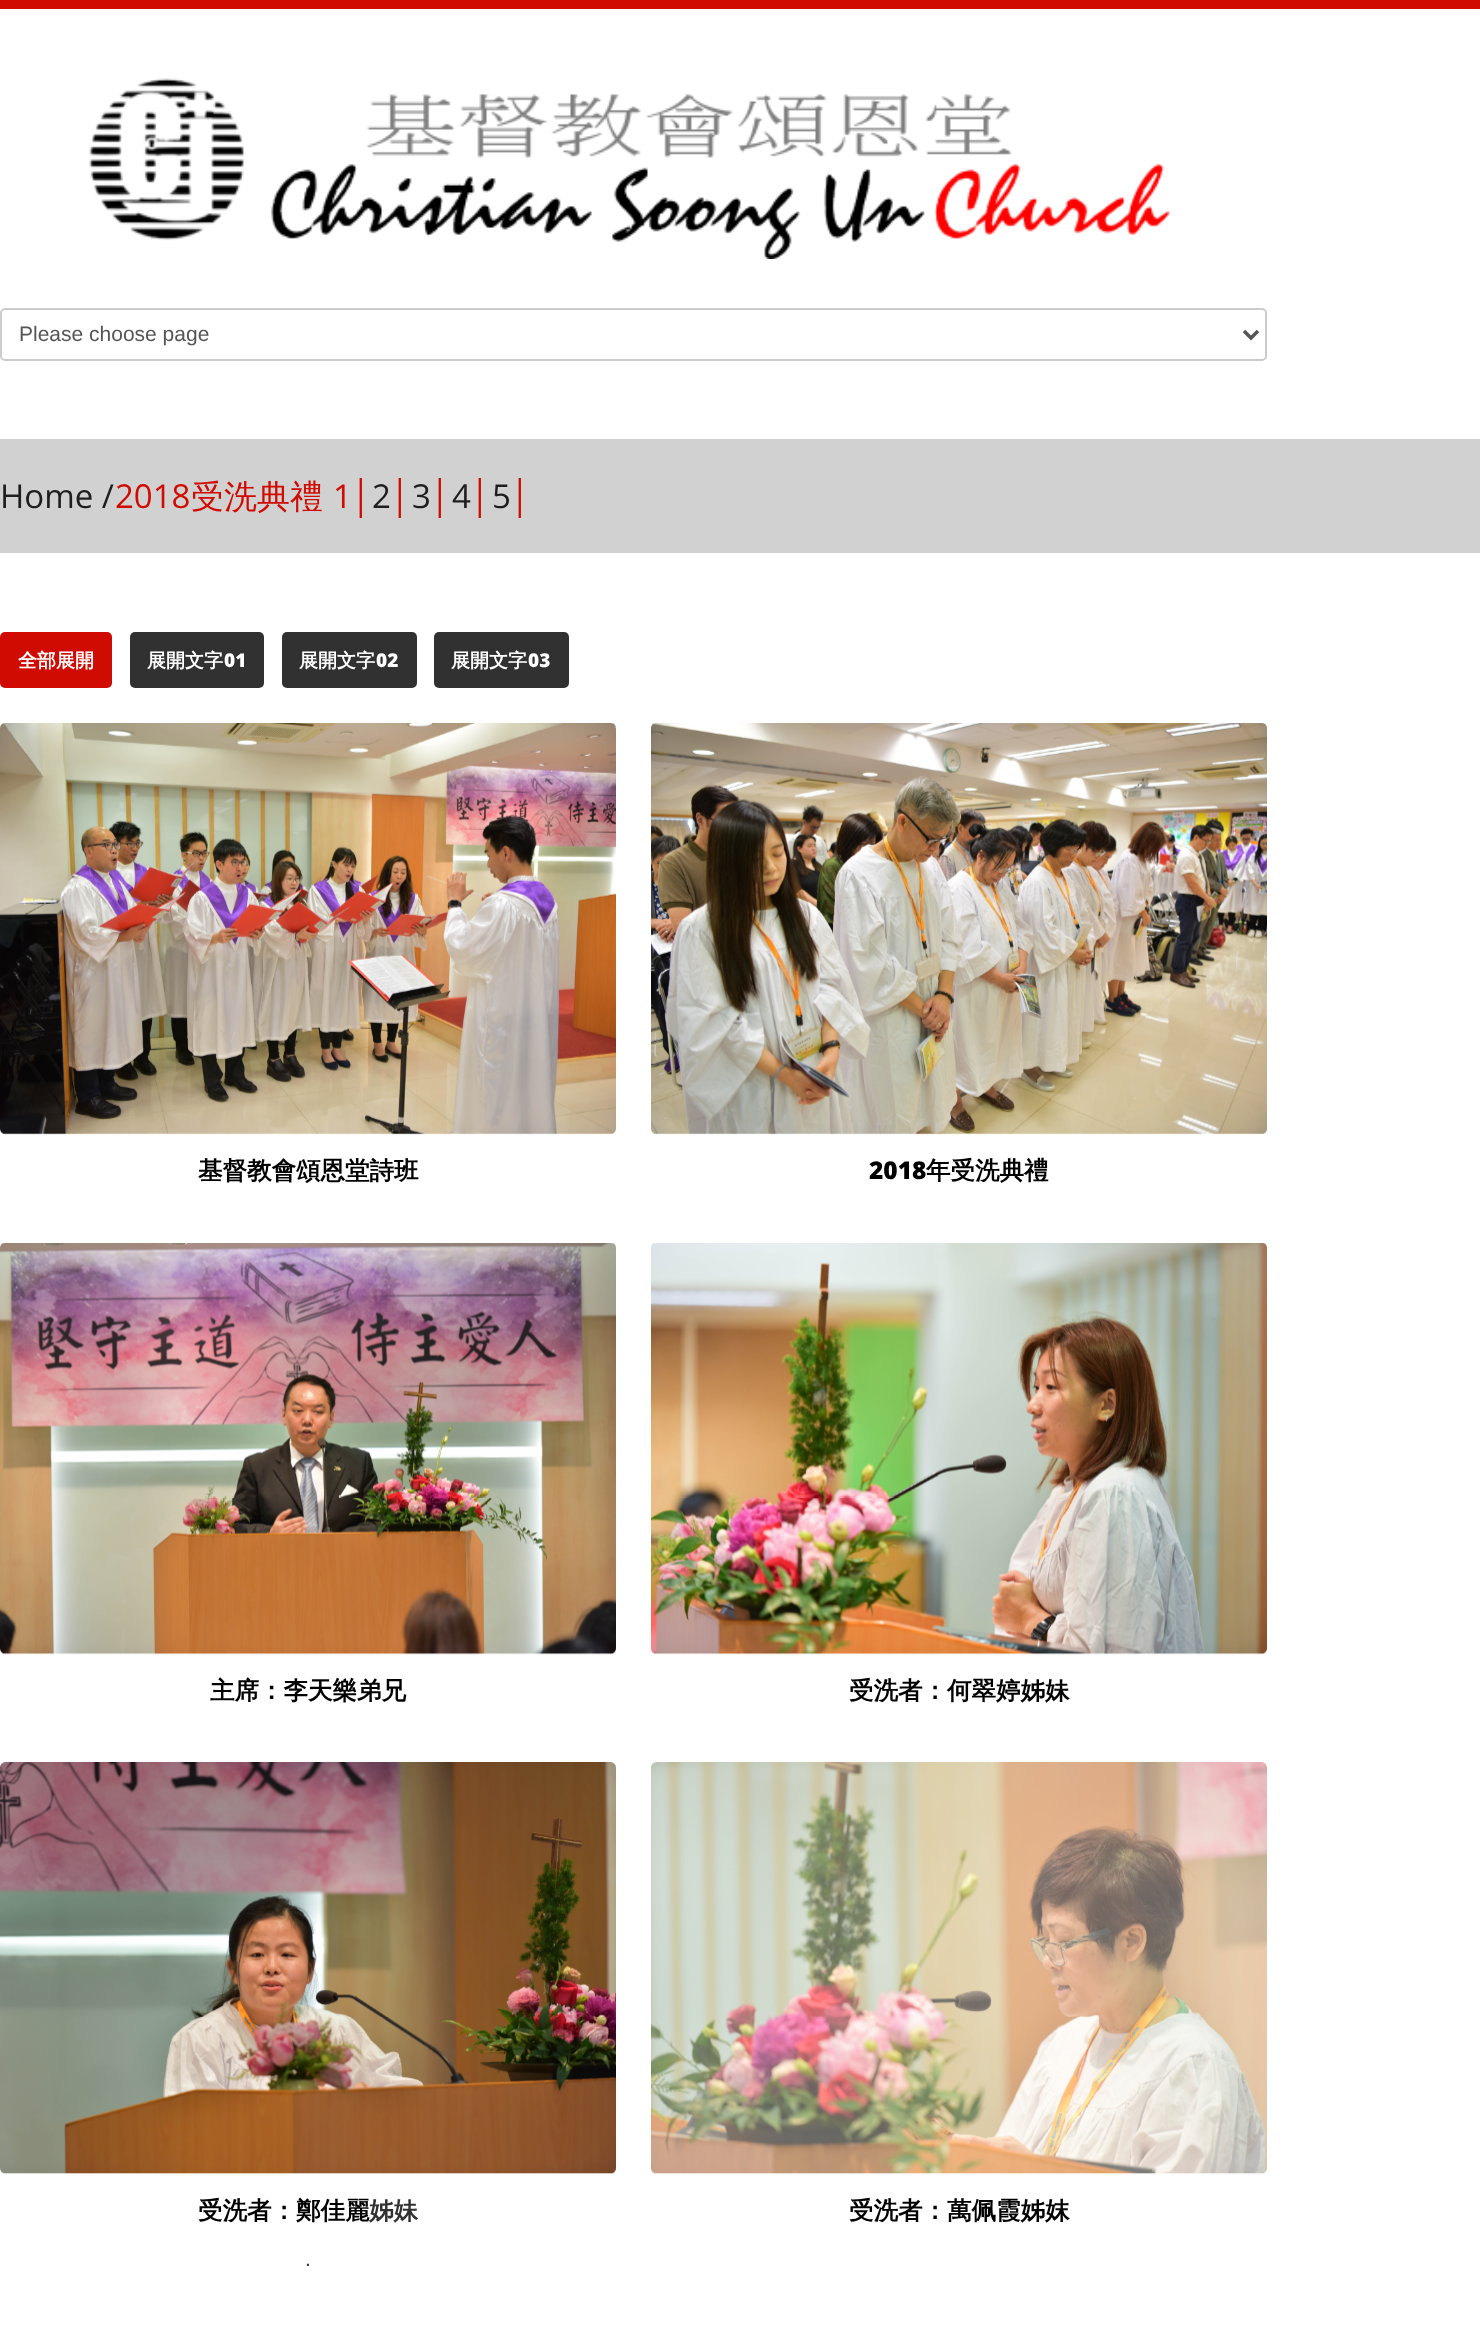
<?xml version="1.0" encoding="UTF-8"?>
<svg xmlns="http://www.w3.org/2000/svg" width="1480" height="2343">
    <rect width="100%" height="100%" fill="#FFFFFF"/>
    <rect x="0" y="0" width="1480" height="9" fill="#D00B01"/>
    <image x="89" y="78" width="1081" height="181" href="img_01.png"/>
    <rect x="1" y="309" width="1265" height="51" rx="4" fill="none" stroke="#CCCCCC" stroke-width="2"/>
    <path d="M 1244 331 L 1251 338 L 1258 331" fill="none" stroke="#555555" stroke-width="3.5"/>
    <text x="19" y="341" font-family="Liberation Sans" font-size="21" fill="#555555">Please choose page</text>
    <rect x="0" y="439" width="1480" height="114" fill="#D1D1D1"/>
    <text x="0" y="508" font-family="Open Sans" font-size="33" fill="#1E1E1E">Home /</text>
    <text x="115" y="508" font-family="Open Sans" font-size="33" fill="#D00B01">2018</text>
    <text x="191" y="508" font-family="WenQuanYi Zen Hei" font-size="33" font-weight="500" fill="#D00B01">受洗典禮</text>
    <text x="333" y="508" font-family="Open Sans" font-size="33" fill="#D00B01">1</text>
    <text x="352" y="508" font-family="Liberation Sans" font-size="33" fill="#D00B01">│</text>
    <text x="372" y="508" font-family="Open Sans" font-size="33" fill="#1E1E1E">2</text>
    <text x="391" y="508" font-family="Liberation Sans" font-size="33" fill="#D00B01">│</text>
    <text x="412" y="508" font-family="Open Sans" font-size="33" fill="#1E1E1E">3</text>
    <text x="431" y="508" font-family="Liberation Sans" font-size="33" fill="#D00B01">│</text>
    <text x="452" y="508" font-family="Open Sans" font-size="33" fill="#1E1E1E">4</text>
    <text x="471" y="508" font-family="Liberation Sans" font-size="33" fill="#D00B01">│</text>
    <text x="492" y="508" font-family="Open Sans" font-size="33" fill="#1E1E1E">5</text>
    <text x="511" y="508" font-family="Liberation Sans" font-size="33" fill="#D00B01">│</text>
    <rect x="0" y="632" width="112" height="56" rx="5" fill="#D00B01"/>
    <text x="18" y="667" font-family="WenQuanYi Zen Hei" font-size="19" font-weight="700" fill="#FFFFFF">全部展開</text>
    <rect x="130" y="632" width="134" height="56" rx="5" fill="#313131"/>
    <text x="147" y="667" font-family="WenQuanYi Zen Hei" font-size="19" font-weight="700" fill="#FFFFFF">展開文字</text>
    <text x="224" y="667" font-family="Open Sans" font-size="19" font-weight="800" fill="#FFFFFF">01</text>
    <rect x="282" y="632" width="135" height="56" rx="5" fill="#313131"/>
    <text x="299" y="667" font-family="WenQuanYi Zen Hei" font-size="19" font-weight="700" fill="#FFFFFF">展開文字</text>
    <text x="376" y="667" font-family="Open Sans" font-size="19" font-weight="800" fill="#FFFFFF">02</text>
    <rect x="434" y="632" width="135" height="56" rx="5" fill="#313131"/>
    <text x="451" y="667" font-family="WenQuanYi Zen Hei" font-size="19" font-weight="700" fill="#FFFFFF">展開文字</text>
    <text x="528" y="667" font-family="Open Sans" font-size="19" font-weight="800" fill="#FFFFFF">03</text>
    <image x="0" y="723" width="616" height="412" href="img_02.png"/>
    <text x="198" y="1179" font-family="WenQuanYi Zen Hei" font-size="24.5" font-weight="700" fill="#000000">基督教會頌恩堂詩班</text>
    <image x="651" y="723" width="616" height="412" href="img_03.png"/>
    <text x="869" y="1179" font-family="Open Sans" font-size="24.5" font-weight="800" fill="#000000">2018</text>
    <text x="926" y="1179" font-family="WenQuanYi Zen Hei" font-size="24.5" font-weight="700" fill="#000000">年受洗典禮</text>
    <image x="0" y="1243" width="616" height="412" href="img_04.png"/>
    <text x="210" y="1699" font-family="WenQuanYi Zen Hei" font-size="24.5" font-weight="700" fill="#000000">主席：李天樂弟兄</text>
    <image x="651" y="1243" width="616" height="412" href="img_05.png"/>
    <text x="849" y="1699" font-family="WenQuanYi Zen Hei" font-size="24.5" font-weight="700" fill="#000000">受洗者：何翠婷姊妹</text>
    <image x="0" y="1762" width="616" height="412" href="img_06.png"/>
    <text x="198" y="2219" font-family="WenQuanYi Zen Hei" font-size="24.5" font-weight="700" fill="#000000">受洗者：鄭佳麗</text>
    <text x="369" y="2219" font-family="WenQuanYi Zen Hei" font-size="24.5" font-weight="700" fill="#313131">姊妹</text>
    <text x="305" y="2266" font-family="Liberation Sans" font-size="21" fill="#313131">.</text>
    <image x="651" y="1762" width="616" height="412" href="img_07.png"/>
    <text x="849" y="2219" font-family="WenQuanYi Zen Hei" font-size="24.5" font-weight="700" fill="#000000">受洗者：萬佩霞姊妺</text>
</svg>
